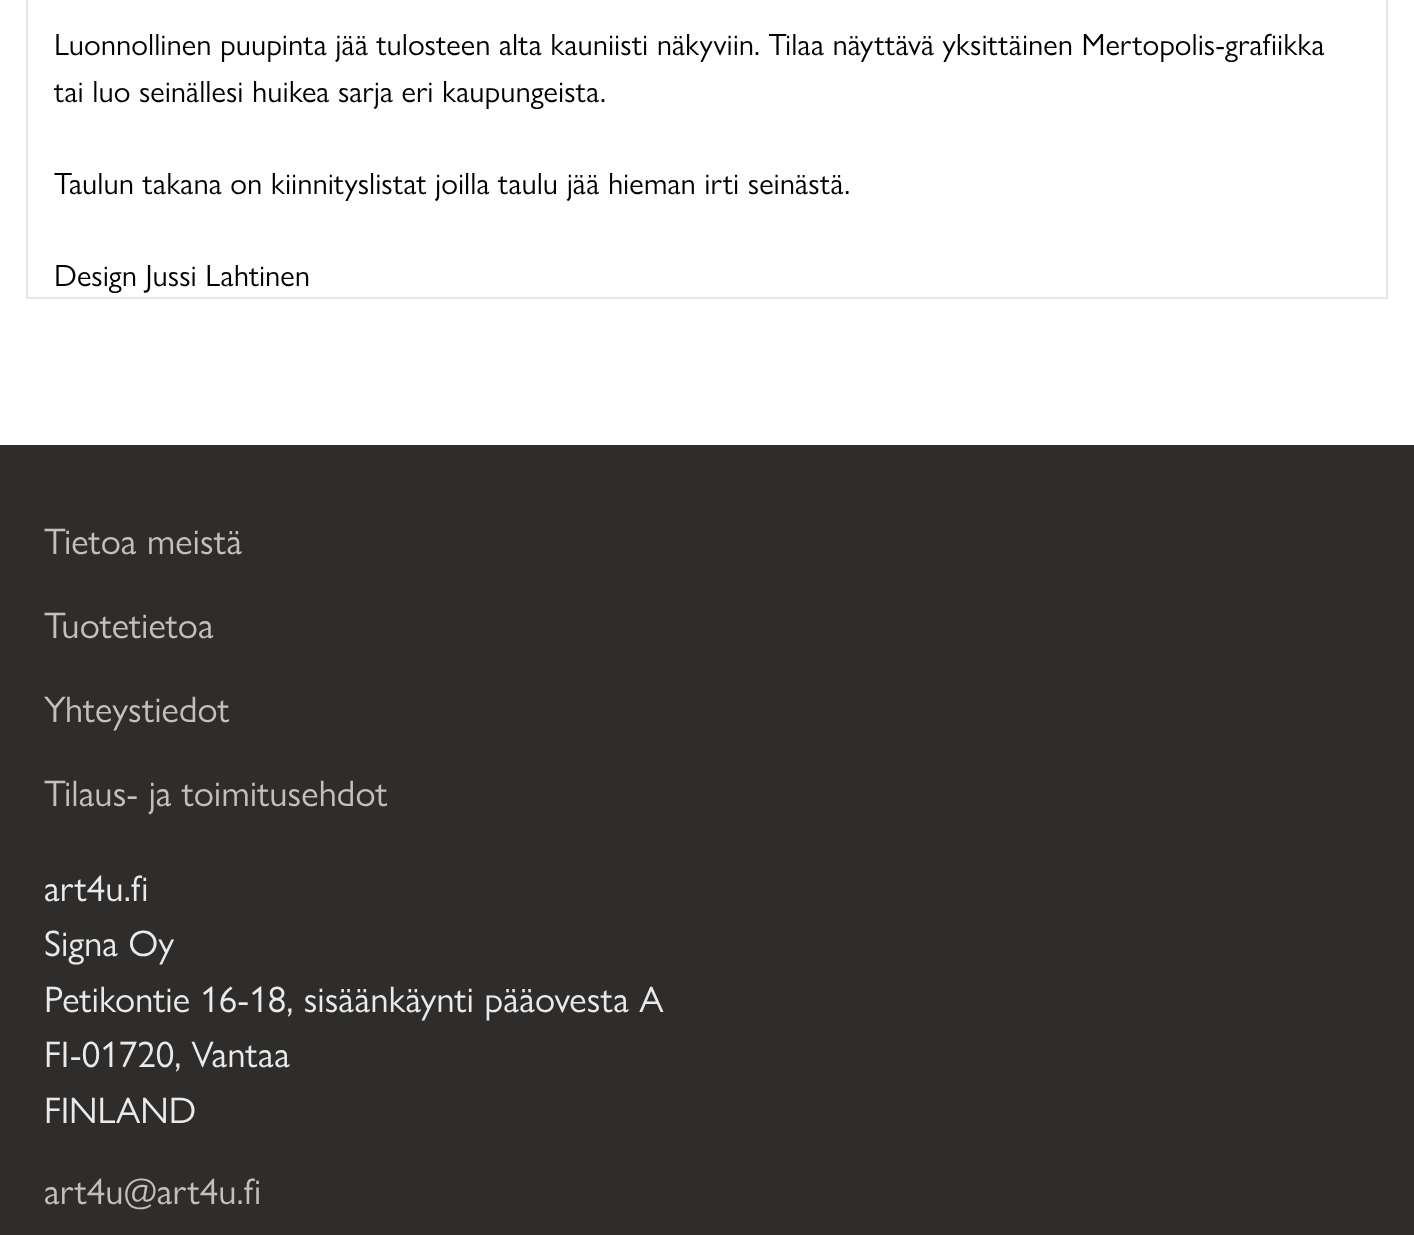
<?xml version="1.0" encoding="UTF-8"?>
<svg xmlns="http://www.w3.org/2000/svg" width="1414" height="1235">
    <rect width="100%" height="100%" fill="#FFFFFF"/>
    <rect x="27" y="-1" width="1360" height="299" fill="none" stroke="#E6E6E6" stroke-width="2"/>
    <text font-family="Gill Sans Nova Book" font-size="30.8" fill="#000000">
        <tspan x="54" y="55">Luonnollinen puupinta jää tulosteen alta kauniisti näkyviin. Tilaa näyttävä yksittäinen Mertopolis-grafiikka</tspan>
        <tspan x="54" y="102">tai luo seinällesi huikea sarja eri kaupungeista.</tspan>
    </text>
    <text x="54" y="194" font-family="Gill Sans Nova Book" font-size="30.8" fill="#000000">Taulun takana on kiinnityslistat joilla taulu jää hieman irti seinästä.</text>
    <text x="54" y="286" font-family="Gill Sans Nova Book" font-size="30.8" fill="#000000">Design Jussi Lahtinen</text>
    <rect x="0" y="445" width="1414" height="790" fill="#2F2D2B"/>
    <text x="44" y="554" font-family="Gill Sans Nova Book" font-size="37" fill="#C1C0BF">Tietoa meistä</text>
    <text x="44" y="638" font-family="Gill Sans Nova Book" font-size="37" fill="#C1C0BF">Tuotetietoa</text>
    <text x="44" y="722" font-family="Gill Sans Nova Book" font-size="37" fill="#C1C0BF">Yhteystiedot</text>
    <text x="44" y="806" font-family="Gill Sans Nova Book" font-size="37" fill="#C1C0BF">Tilaus- ja toimitusehdot</text>
    <text font-family="Gill Sans Nova Book" font-size="37" fill="#EAEAEA">
        <tspan x="44" y="901">art4u.fi</tspan>
        <tspan x="44" y="956">Signa Oy</tspan>
        <tspan x="44" y="1012">Petikontie 16-18, sisäänkäynti pääovesta A</tspan>
        <tspan x="44" y="1067">FI-01720, Vantaa</tspan>
        <tspan x="44" y="1123">FINLAND</tspan>
    </text>
    <text x="44" y="1204" font-family="Gill Sans Nova Book" font-size="37" fill="#C1C0BF">art4u@art4u.fi</text>
</svg>
